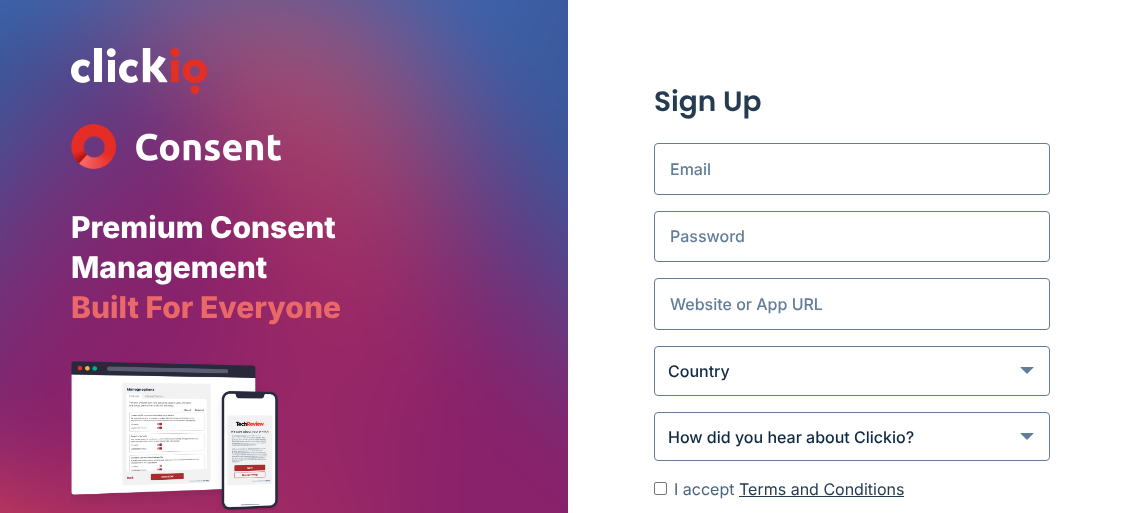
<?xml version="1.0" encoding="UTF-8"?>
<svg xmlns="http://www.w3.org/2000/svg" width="1136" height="513">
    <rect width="100%" height="100%" fill="#FFFFFF"/>
    <image x="0" y="0" width="568" height="513" href="img_01.png"/>
    <image x="71" y="48" width="136" height="46" href="img_02.png"/>
    <image x="71" y="124" width="45" height="45" href="img_03.png"/>
    <image x="136" y="133" width="145" height="28" href="img_04.png"/>
    <text font-family="Inter" font-size="30" font-weight="800" fill="#FFFFFF">
        <tspan x="71" y="238">Premium Consent</tspan>
        <tspan x="71" y="278">Management</tspan>
    </text>
    <text x="71" y="318" font-family="Inter" font-size="30" font-weight="800" fill="#EB6868">Built For Everyone</text>
    <image x="71" y="361" width="207" height="149" href="img_05.png"/>
    <text x="654" y="111" font-family="Poppins" font-size="28" font-weight="600" fill="#243B52">Sign Up</text>
    <rect x="654.5" y="143.5" width="395" height="51" rx="3.5" fill="none" stroke="#627D98"/>
    <text x="670" y="175" font-family="Inter" font-size="16" font-weight="500" fill="#627D98">Email</text>
    <rect x="654.5" y="211.5" width="395" height="50" rx="3.5" fill="none" stroke="#627D98"/>
    <text x="670" y="242" font-family="Inter" font-size="16" font-weight="500" fill="#627D98">Password</text>
    <rect x="654.5" y="278.5" width="395" height="51" rx="3.5" fill="none" stroke="#627D98"/>
    <text x="670" y="310" font-family="Inter" font-size="16" font-weight="500" fill="#627D98">Website or App URL</text>
    <image x="1020" y="367" width="14" height="7" href="img_06.png"/>
    <rect x="654.5" y="346.5" width="395" height="49" rx="3.5" fill="none" stroke="#627D98"/>
    <text x="668" y="377" font-family="Inter" font-size="16" font-weight="500" fill="#102A43">Country</text>
    <image x="1020" y="433" width="14" height="7" href="img_06.png"/>
    <rect x="654.5" y="412.5" width="395" height="48" rx="3.5" fill="none" stroke="#627D98"/>
    <text x="668" y="443" font-family="Inter" font-size="16" font-weight="500" fill="#102A43">How did you hear about Clickio?</text>
    <rect x="654.5" y="482.5" width="12" height="12" rx="1.5" fill="none" stroke="#767676"/>
    <text x="674" y="495" font-family="Inter" font-size="16" fill="#48647F">I accept</text>
    <text x="739" y="495" font-family="Inter" font-size="16" fill="#243B52">Terms and Conditions</text>
    <rect x="739" y="496" width="165" height="1" fill="#243B52"/>
</svg>
